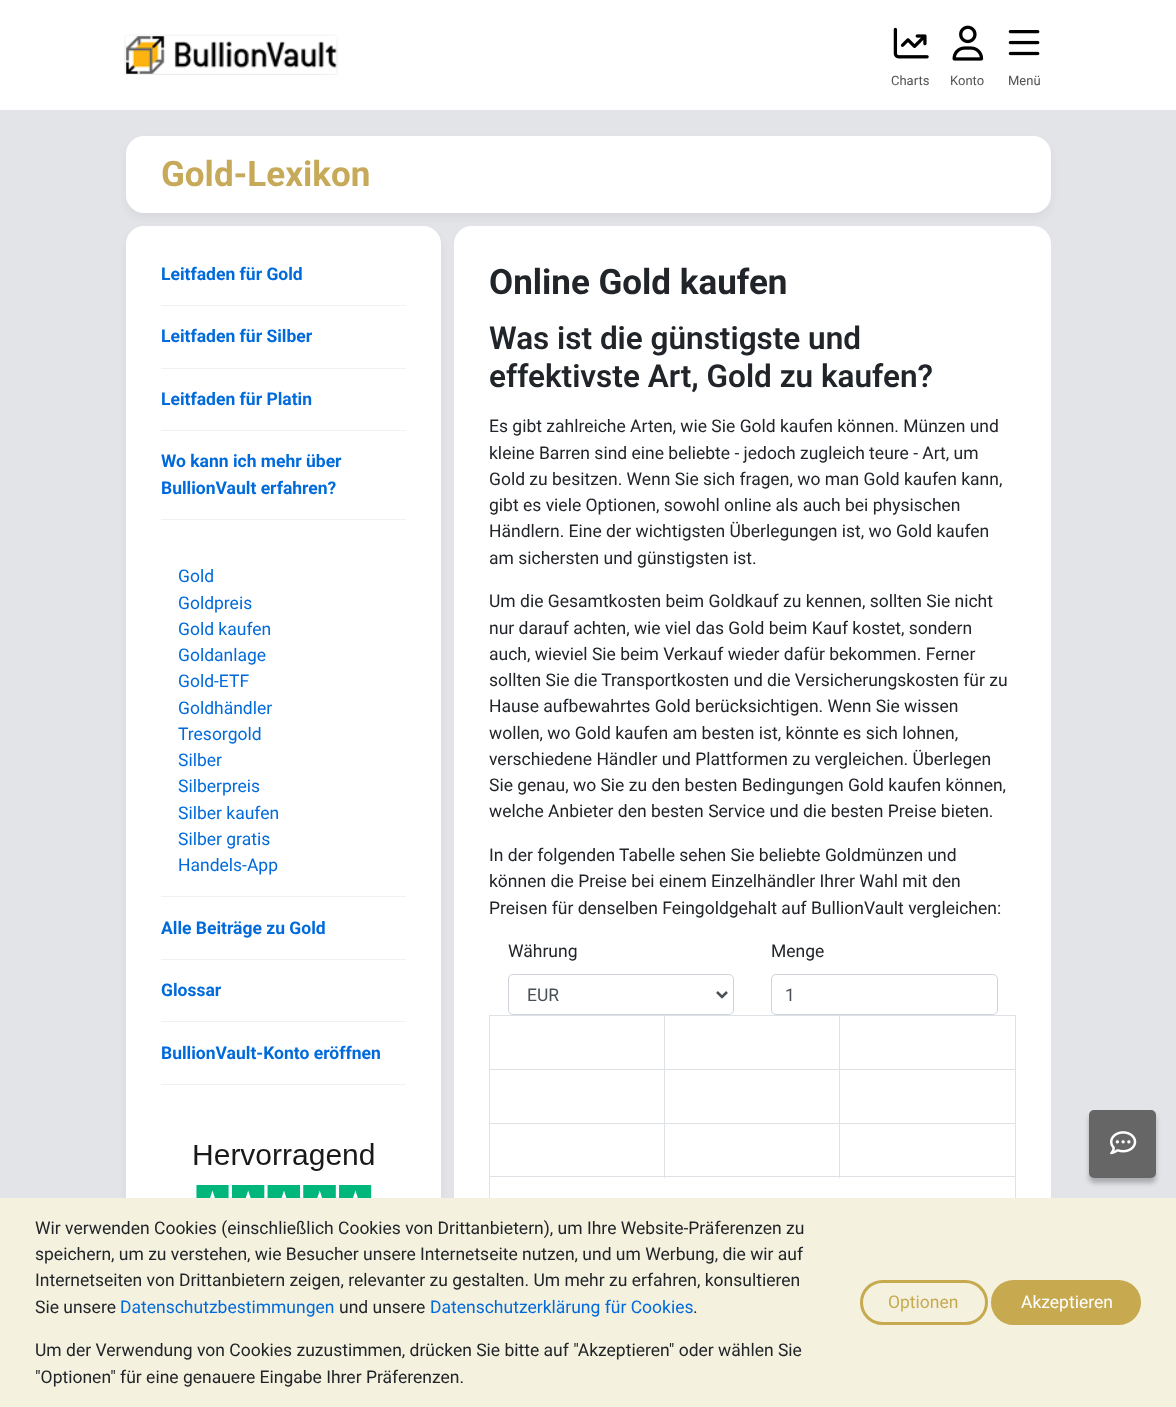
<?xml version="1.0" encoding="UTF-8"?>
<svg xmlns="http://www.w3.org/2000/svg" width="1176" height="1407">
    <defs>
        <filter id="blur1" x="-50%" y="-200%" width="200%" height="500%"><feGaussianBlur stdDeviation="4.5"/></filter>
        <filter id="blur2" x="-50%" y="-200%" width="200%" height="500%"><feGaussianBlur stdDeviation="2.5"/></filter>
    </defs>
    <rect width="100%" height="100%" fill="#E2E4E8"/>
    <rect x="0" y="0" width="1176" height="110" fill="#FFFFFF"/>
    <image x="124" y="34" width="214" height="41" href="img_01.png"/>
    <image x="893" y="27" width="36" height="32" href="img_02.png"/>
    <text x="891" y="85" font-family="Roboto" font-size="13" fill="#525252">Charts</text>
    <image x="952" y="25" width="32" height="36" href="img_03.png"/>
    <text x="950" y="85" font-family="Roboto" font-size="13" fill="#525252">Konto</text>
    <image x="1008" y="30" width="32" height="26" href="img_04.png"/>
    <text x="1008" y="85" font-family="Roboto" font-size="13" fill="#525252">Menü</text>
    <rect x="126" y="141" width="925" height="77" rx="18" fill="#000000" fill-opacity="0.05" filter="url(#blur1)"/>
    <rect x="126" y="136" width="925" height="77" rx="18" fill="#FFFFFF"/>
    <text x="161" y="186" font-family="Roboto" font-size="35" font-weight="700" fill="#C6AA5A">Gold-Lexikon</text>
    <rect x="126" y="231" width="315" height="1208" rx="18" fill="#000000" fill-opacity="0.05" filter="url(#blur1)"/>
    <rect x="126" y="226" width="315" height="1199" rx="18" fill="#FFFFFF"/>
    <rect x="161" y="305" width="245" height="1" fill="#F0F1F3"/>
    <text x="161" y="280" font-family="Roboto" font-size="17.5" font-weight="700" fill="#006ADB">Leitfaden für Gold</text>
    <rect x="161" y="368" width="245" height="1" fill="#F0F1F3"/>
    <text x="161" y="342" font-family="Roboto" font-size="17.5" font-weight="700" fill="#006ADB">Leitfaden für Silber</text>
    <rect x="161" y="430" width="245" height="1" fill="#F0F1F3"/>
    <text x="161" y="405" font-family="Roboto" font-size="17.5" font-weight="700" fill="#006ADB">Leitfaden für Platin</text>
    <rect x="161" y="519" width="245" height="1" fill="#F0F1F3"/>
    <text font-family="Roboto" font-size="17.5" font-weight="700" fill="#006ADB">
        <tspan x="161" y="467">Wo kann ich mehr über</tspan>
        <tspan x="161" y="494">BullionVault erfahren?</tspan>
    </text>
    <rect x="161" y="896" width="245" height="1" fill="#F0F1F3"/>
    <text font-family="Roboto" font-size="17.5" fill="#006ADB">
        <tspan x="178" y="582">Gold</tspan>
        <tspan x="178" y="609">Goldpreis</tspan>
        <tspan x="178" y="635">Gold kaufen</tspan>
        <tspan x="178" y="661">Goldanlage</tspan>
        <tspan x="178" y="687">Gold-ETF</tspan>
        <tspan x="178" y="714">Goldhändler</tspan>
        <tspan x="178" y="740">Tresorgold</tspan>
        <tspan x="178" y="766">Silber</tspan>
        <tspan x="178" y="792">Silberpreis</tspan>
        <tspan x="178" y="819">Silber kaufen</tspan>
        <tspan x="178" y="845">Silber gratis</tspan>
        <tspan x="178" y="871">Handels-App</tspan>
    </text>
    <rect x="161" y="959" width="245" height="1" fill="#F0F1F3"/>
    <text x="161" y="934" font-family="Roboto" font-size="17.5" font-weight="700" fill="#006ADB">Alle Beiträge zu Gold</text>
    <rect x="161" y="1021" width="245" height="1" fill="#F0F1F3"/>
    <text x="161" y="996" font-family="Roboto" font-size="17.5" font-weight="700" fill="#006ADB">Glossar</text>
    <rect x="161" y="1084" width="245" height="1" fill="#F0F1F3"/>
    <text x="161" y="1059" font-family="Roboto" font-size="17.5" font-weight="700" fill="#006ADB">BullionVault-Konto eröffnen</text>
    <image x="194" y="1143" width="180" height="55" href="img_05.png"/>
    <rect x="454" y="226" width="597" height="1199" rx="18" fill="#FFFFFF"/>
    <text x="489" y="294" font-family="Roboto" font-size="35" font-weight="700" fill="#212529">Online Gold kaufen</text>
    <text font-family="Roboto" font-size="31.5" font-weight="600" fill="#212529">
        <tspan x="489" y="349">Was ist die günstigste und</tspan>
        <tspan x="489" y="387">effektivste Art, Gold zu kaufen?</tspan>
    </text>
    <text font-family="Roboto" font-size="17.5" fill="#212529">
        <tspan x="489" y="432">Es gibt zahlreiche Arten, wie Sie Gold kaufen können. Münzen und</tspan>
        <tspan x="489" y="459">kleine Barren sind eine beliebte - jedoch zugleich teure - Art, um</tspan>
        <tspan x="489" y="485">Gold zu besitzen. Wenn Sie sich fragen, wo man Gold kaufen kann,</tspan>
        <tspan x="489" y="511">gibt es viele Optionen, sowohl online als auch bei physischen</tspan>
        <tspan x="489" y="537">Händlern. Eine der wichtigsten Überlegungen ist, wo Gold kaufen</tspan>
        <tspan x="489" y="564">am sichersten und günstigsten ist.</tspan>
    </text>
    <text font-family="Roboto" font-size="17.5" fill="#212529">
        <tspan x="489" y="607">Um die Gesamtkosten beim Goldkauf zu kennen, sollten Sie nicht</tspan>
        <tspan x="489" y="634">nur darauf achten, wie viel das Gold beim Kauf kostet, sondern</tspan>
        <tspan x="489" y="660">auch, wieviel Sie beim Verkauf wieder dafür bekommen. Ferner</tspan>
        <tspan x="489" y="686">sollten Sie die Transportkosten und die Versicherungskosten für zu</tspan>
        <tspan x="489" y="712">Hause aufbewahrtes Gold berücksichtigen. Wenn Sie wissen</tspan>
        <tspan x="489" y="739">wollen, wo Gold kaufen am besten ist, könnte es sich lohnen,</tspan>
        <tspan x="489" y="765">verschiedene Händler und Plattformen zu vergleichen. Überlegen</tspan>
        <tspan x="489" y="791">Sie genau, wo Sie zu den besten Bedingungen Gold kaufen können,</tspan>
        <tspan x="489" y="817">welche Anbieter den besten Service und die besten Preise bieten.</tspan>
    </text>
    <text font-family="Roboto" font-size="17.5" fill="#212529">
        <tspan x="489" y="861">In der folgenden Tabelle sehen Sie beliebte Goldmünzen und</tspan>
        <tspan x="489" y="887">können die Preise bei einem Einzelhändler Ihrer Wahl mit den</tspan>
        <tspan x="489" y="914">Preisen für denselben Feingoldgehalt auf BullionVault vergleichen:</tspan>
    </text>
    <text x="508" y="957" font-family="Roboto" font-size="17.5" fill="#212529">Währung</text>
    <rect x="508.5" y="974.5" width="225" height="40" rx="4.5" fill="none" stroke="#CED4DA"/>
    <path d="M 717 992 L 722 997 L 727 992" fill="none" stroke="#495057" stroke-width="2.5"/>
    <text x="527" y="1001" font-family="Roboto" font-size="17.5" fill="#495057">EUR</text>
    <text x="771" y="957" font-family="Roboto" font-size="17.5" fill="#212529">Menge</text>
    <rect x="771.5" y="974.5" width="226" height="40" rx="4.5" fill="none" stroke="#CED4DA"/>
    <text x="785" y="1001" font-family="Roboto" font-size="17.5" fill="#495057">1</text>
    <rect x="489" y="1015" width="527" height="1" fill="#DEE2E6"/>
    <rect x="1015" y="1015" width="1" height="183" fill="#DEE2E6"/>
    <rect x="489" y="1015" width="1" height="183" fill="#DEE2E6"/>
    <rect x="839" y="1069" width="177" height="1" fill="#DEE2E6"/>
    <rect x="839" y="1123" width="177" height="1" fill="#DEE2E6"/>
    <rect x="489" y="1176" width="527" height="1" fill="#DEE2E6"/>
    <rect x="839" y="1123" width="1" height="55" fill="#DEE2E6"/>
    <rect x="664" y="1123" width="176" height="1" fill="#DEE2E6"/>
    <rect x="839" y="1069" width="1" height="55" fill="#DEE2E6"/>
    <rect x="664" y="1069" width="176" height="1" fill="#DEE2E6"/>
    <rect x="664" y="1123" width="1" height="55" fill="#DEE2E6"/>
    <rect x="489" y="1123" width="176" height="1" fill="#DEE2E6"/>
    <rect x="664" y="1069" width="1" height="55" fill="#DEE2E6"/>
    <rect x="489" y="1069" width="176" height="1" fill="#DEE2E6"/>
    <rect x="664" y="1015" width="1" height="55" fill="#DEE2E6"/>
    <rect x="839" y="1015" width="1" height="55" fill="#DEE2E6"/>
    <rect x="1089" y="1115" width="67" height="68" rx="5" fill="#000000" fill-opacity="0.25" filter="url(#blur2)"/>
    <rect x="1090.5" y="1111.5" width="64" height="65" rx="3.5" fill="#666666" stroke="#666666" stroke-width="3"/>
    <image x="1110" y="1131" width="27" height="24" href="img_06.png"/>
    <rect x="0" y="1198" width="1176" height="209" fill="#F4F1DF"/>
    <text font-family="Roboto" font-size="17.5" fill="#212529">
        <tspan x="35" y="1234">Wir verwenden Cookies (einschließlich Cookies von Drittanbietern), um Ihre Website-Präferenzen zu</tspan>
        <tspan x="35" y="1260">speichern, um zu verstehen, wie Besucher unsere Internetseite nutzen, und um Werbung, die wir auf</tspan>
        <tspan x="35" y="1286">Internetseiten von Drittanbietern zeigen, relevanter zu gestalten. Um mehr zu erfahren, konsultieren</tspan>
        <tspan x="35" y="1313">Sie unsere</tspan>
    </text>
    <text x="120" y="1313" font-family="Roboto" font-size="17.5" fill="#006ADB">Datenschutzbestimmungen</text>
    <text x="339" y="1313" font-family="Roboto" font-size="17.5" fill="#212529">und unsere</text>
    <text x="430" y="1313" font-family="Roboto" font-size="17.5" fill="#006ADB">Datenschutzerklärung für Cookies</text>
    <text x="693" y="1313" font-family="Roboto" font-size="17.5" fill="#212529">.</text>
    <text font-family="Roboto" font-size="17.5" fill="#212529">
        <tspan x="35" y="1356">Um der Verwendung von Cookies zuzustimmen, drücken Sie bitte auf "Akzeptieren" oder wählen Sie</tspan>
        <tspan x="35" y="1383">"Optionen" für eine genauere Eingabe Ihrer Präferenzen.</tspan>
    </text>
    <rect x="861.5" y="1281.5" width="125" height="42" rx="21" fill="none" stroke="#C7AA50" stroke-width="3"/>
    <text x="888" y="1308" font-family="Roboto" font-size="17.5" fill="#C7AA50">Optionen</text>
    <rect x="992.5" y="1281.5" width="147" height="42" rx="21" fill="#C7AA50" stroke="#C7AA50" stroke-width="3"/>
    <text x="1021" y="1308" font-family="Roboto" font-size="17.5" fill="#FFFFFF">Akzeptieren</text>
</svg>
